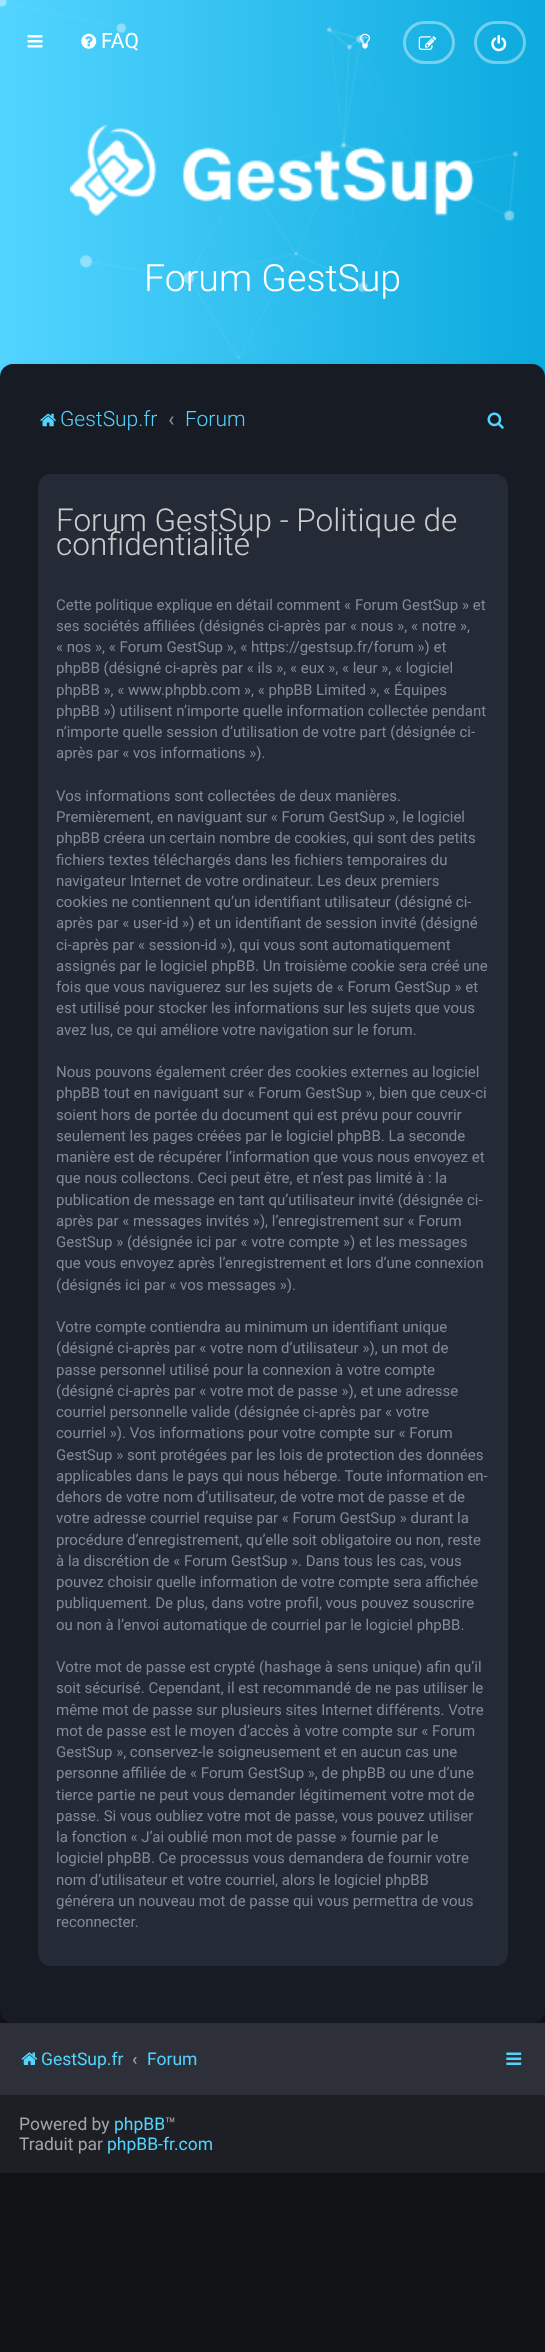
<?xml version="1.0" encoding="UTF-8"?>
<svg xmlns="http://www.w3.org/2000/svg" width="545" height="2352">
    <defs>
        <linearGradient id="g1" gradientUnits="userSpaceOnUse" x1="0" y1="213" x2="545" y2="213"><stop offset="0" stop-color="#52D4FF"/><stop offset="1" stop-color="#0CAADE"/></linearGradient>
        <filter id="blur1" x="-50%" y="-200%" width="200%" height="500%"><feGaussianBlur stdDeviation="3"/></filter>
    </defs>
    <rect width="100%" height="100%" fill="#101216"/>
    <rect x="0" y="0" width="545" height="377" fill="url(#g1)"/>
    <image x="0" y="0" width="519" height="359" href="img_06.png"/>
    <image x="27" y="35" width="16" height="13" href="img_01.png"/>
    <image x="81" y="33" width="16" height="16" href="img_02.png"/>
    <text x="101" y="48" font-family="Roboto" font-size="21" fill="#FFFFFF">FAQ</text>
    <image x="360" y="33" width="10" height="16" href="img_03.png"/>
    <rect x="404.5" y="22.5" width="49" height="40" rx="20" fill="none" stroke="#FFFFFF" stroke-opacity="0.4" stroke-width="3"/>
    <image x="418" y="36" width="19" height="14" href="img_04.png"/>
    <rect x="475.5" y="22.5" width="49" height="40" rx="20" fill="none" stroke="#FFFFFF" stroke-opacity="0.4" stroke-width="3"/>
    <image x="491" y="35" width="16" height="17" href="img_05.png"/>
    <image x="70" y="125" width="404" height="91" href="img_07.png"/>
    <text x="144" y="291" font-family="Roboto" font-size="37.5" font-weight="300" fill="#FFFFFF">Forum GestSup</text>
    <rect x="0" y="2023" width="545" height="72" fill="#2D3039"/>
    <rect x="0" y="364" width="545" height="1659" rx="13" fill="#000000" fill-opacity="0.05" filter="url(#blur1)"/>
    <rect x="0" y="364" width="545" height="1659" rx="13" fill="#171B24"/>
    <image x="40" y="413" width="16" height="14" href="img_08.png"/>
    <text x="60" y="426" font-family="Roboto" font-size="21" font-weight="300" fill="#52D4FF">GestSup.fr</text>
    <text x="168" y="426" font-family="Roboto" font-size="21" font-weight="500" fill="#838B98">‹</text>
    <text x="185" y="426" font-family="Roboto" font-size="21" font-weight="300" fill="#52D4FF">Forum</text>
    <image x="487" y="412" width="17" height="17" href="img_09.png"/>
    <rect x="38" y="474" width="470" height="1492" rx="13" fill="#242A36"/>
    <text font-family="Roboto" font-size="31.5" font-weight="300" fill="#CCCCCC">
        <tspan x="56" y="531">Forum GestSup - Politique de</tspan>
        <tspan x="56" y="555">confidentialité</tspan>
    </text>
    <text font-family="Roboto" font-size="15" fill="#838B98">
        <tspan x="56" y="610">Cette politique explique en détail comment « Forum GestSup » et</tspan>
        <tspan x="56" y="631">ses sociétés affiliées (désignés ci-après par « nous », « notre »,</tspan>
        <tspan x="56" y="652">« nos », « Forum GestSup », « https://gestsup.fr/forum ») et</tspan>
        <tspan x="56" y="673">phpBB (désigné ci-après par « ils », « eux », « leur », « logiciel</tspan>
        <tspan x="56" y="695">phpBB », « www.phpbb.com », « phpBB Limited », « Équipes</tspan>
        <tspan x="56" y="716">phpBB ») utilisent n’importe quelle information collectée pendant</tspan>
        <tspan x="56" y="737">n’importe quelle session d’utilisation de votre part (désignée ci-</tspan>
        <tspan x="56" y="758">après par « vos informations »).</tspan>
    </text>
    <text font-family="Roboto" font-size="15" fill="#838B98">
        <tspan x="56" y="801">Vos informations sont collectées de deux manières.</tspan>
        <tspan x="56" y="822">Premièrement, en naviguant sur « Forum GestSup », le logiciel</tspan>
        <tspan x="56" y="843">phpBB créera un certain nombre de cookies, qui sont des petits</tspan>
        <tspan x="56" y="865">fichiers textes téléchargés dans les fichiers temporaires du</tspan>
        <tspan x="56" y="886">navigateur Internet de votre ordinateur. Les deux premiers</tspan>
        <tspan x="56" y="907">cookies ne contiennent qu’un identifiant utilisateur (désigné ci-</tspan>
        <tspan x="56" y="928">après par « user-id ») et un identifiant de session invité (désigné</tspan>
        <tspan x="56" y="950">ci-après par « session-id »), qui vous sont automatiquement</tspan>
        <tspan x="56" y="971">assignés par le logiciel phpBB. Un troisième cookie sera créé une</tspan>
        <tspan x="56" y="992">fois que vous naviguerez sur les sujets de « Forum GestSup » et</tspan>
        <tspan x="56" y="1013">est utilisé pour stocker les informations sur les sujets que vous</tspan>
        <tspan x="56" y="1035">avez lus, ce qui améliore votre navigation sur le forum.</tspan>
    </text>
    <text font-family="Roboto" font-size="15" fill="#838B98">
        <tspan x="56" y="1077">Nous pouvons également créer des cookies externes au logiciel</tspan>
        <tspan x="56" y="1098">phpBB tout en naviguant sur « Forum GestSup », bien que ceux-ci</tspan>
        <tspan x="56" y="1120">soient hors de portée du document qui est prévu pour couvrir</tspan>
        <tspan x="56" y="1141">seulement les pages créées par le logiciel phpBB. La seconde</tspan>
        <tspan x="56" y="1162">manière est de récupérer l’information que vous nous envoyez et</tspan>
        <tspan x="56" y="1183">que nous collectons. Ceci peut être, et n’est pas limité à : la</tspan>
        <tspan x="56" y="1205">publication de message en tant qu’utilisateur invité (désignée ci-</tspan>
        <tspan x="56" y="1226">après par « messages invités »), l’enregistrement sur « Forum</tspan>
        <tspan x="56" y="1247">GestSup » (désignée ici par « votre compte ») et les messages</tspan>
        <tspan x="56" y="1268">que vous envoyez après l’enregistrement et lors d’une connexion</tspan>
        <tspan x="56" y="1290">(désignés ici par « vos messages »).</tspan>
    </text>
    <text font-family="Roboto" font-size="15" fill="#838B98">
        <tspan x="56" y="1332">Votre compte contiendra au minimum un identifiant unique</tspan>
        <tspan x="56" y="1353">(désigné ci-après par « votre nom d’utilisateur »), un mot de</tspan>
        <tspan x="56" y="1375">passe personnel utilisé pour la connexion à votre compte</tspan>
        <tspan x="56" y="1396">(désigné ci-après par « votre mot de passe »), et une adresse</tspan>
        <tspan x="56" y="1417">courriel personnelle valide (désignée ci-après par « votre</tspan>
        <tspan x="56" y="1438">courriel »). Vos informations pour votre compte sur « Forum</tspan>
        <tspan x="56" y="1460">GestSup » sont protégées par les lois de protection des données</tspan>
        <tspan x="56" y="1481">applicables dans le pays qui nous héberge. Toute information en-</tspan>
        <tspan x="56" y="1502">dehors de votre nom d’utilisateur, de votre mot de passe et de</tspan>
        <tspan x="56" y="1523">votre adresse courriel requise par « Forum GestSup » durant la</tspan>
        <tspan x="56" y="1545">procédure d’enregistrement, qu’elle soit obligatoire ou non, reste</tspan>
        <tspan x="56" y="1566">à la discrétion de « Forum GestSup ». Dans tous les cas, vous</tspan>
        <tspan x="56" y="1587">pouvez choisir quelle information de votre compte sera affichée</tspan>
        <tspan x="56" y="1608">publiquement. De plus, dans votre profil, vous pouvez souscrire</tspan>
        <tspan x="56" y="1630">ou non à l’envoi automatique de courriel par le logiciel phpBB.</tspan>
    </text>
    <text font-family="Roboto" font-size="15" fill="#838B98">
        <tspan x="56" y="1672">Votre mot de passe est crypté (hashage à sens unique) afin qu’il</tspan>
        <tspan x="56" y="1693">soit sécurisé. Cependant, il est recommandé de ne pas utiliser le</tspan>
        <tspan x="56" y="1715">même mot de passe sur plusieurs sites Internet différents. Votre</tspan>
        <tspan x="56" y="1736">mot de passe est le moyen d’accès à votre compte sur « Forum</tspan>
        <tspan x="56" y="1757">GestSup », conservez-le soigneusement et en aucun cas une</tspan>
        <tspan x="56" y="1778">personne affiliée de « Forum GestSup », de phpBB ou une d’une</tspan>
        <tspan x="56" y="1800">tierce partie ne peut vous demander légitimement votre mot de</tspan>
        <tspan x="56" y="1821">passe. Si vous oubliez votre mot de passe, vous pouvez utiliser</tspan>
        <tspan x="56" y="1842">la fonction « J’ai oublié mon mot de passe » fournie par le</tspan>
        <tspan x="56" y="1863">logiciel phpBB. Ce processus vous demandera de fournir votre</tspan>
        <tspan x="56" y="1885">nom d’utilisateur et votre courriel, alors le logiciel phpBB</tspan>
        <tspan x="56" y="1906">générera un nouveau mot de passe qui vous permettra de vous</tspan>
        <tspan x="56" y="1927">reconnecter.</tspan>
    </text>
    <image x="21" y="2052" width="17" height="13" href="img_10.png"/>
    <text x="41" y="2065" font-family="Roboto" font-size="17.5" fill="#52D4FF">GestSup.fr</text>
    <text x="132" y="2065" font-family="Roboto" font-size="17.5" font-weight="500" fill="#A4A4A7">‹</text>
    <text x="147" y="2065" font-family="Roboto" font-size="17.5" fill="#52D4FF">Forum</text>
    <image x="506" y="2052" width="16" height="13" href="img_11.png"/>
    <rect x="0" y="2095" width="545" height="78" fill="#1D1F25"/>
    <text x="19" y="2130" font-family="Roboto" font-size="17.5" fill="#A4A4A7">Powered by</text>
    <text x="114" y="2130" font-family="Roboto" font-size="17.5" fill="#52D4FF">phpBB</text>
    <text x="165" y="2130" font-family="Roboto" font-size="17.5" fill="#A4A4A7">™</text>
    <text x="19" y="2150" font-family="Roboto" font-size="17.5" fill="#A4A4A7">Traduit par</text>
    <text x="107" y="2150" font-family="Roboto" font-size="17.5" fill="#52D4FF">phpBB-fr.com</text>
</svg>
